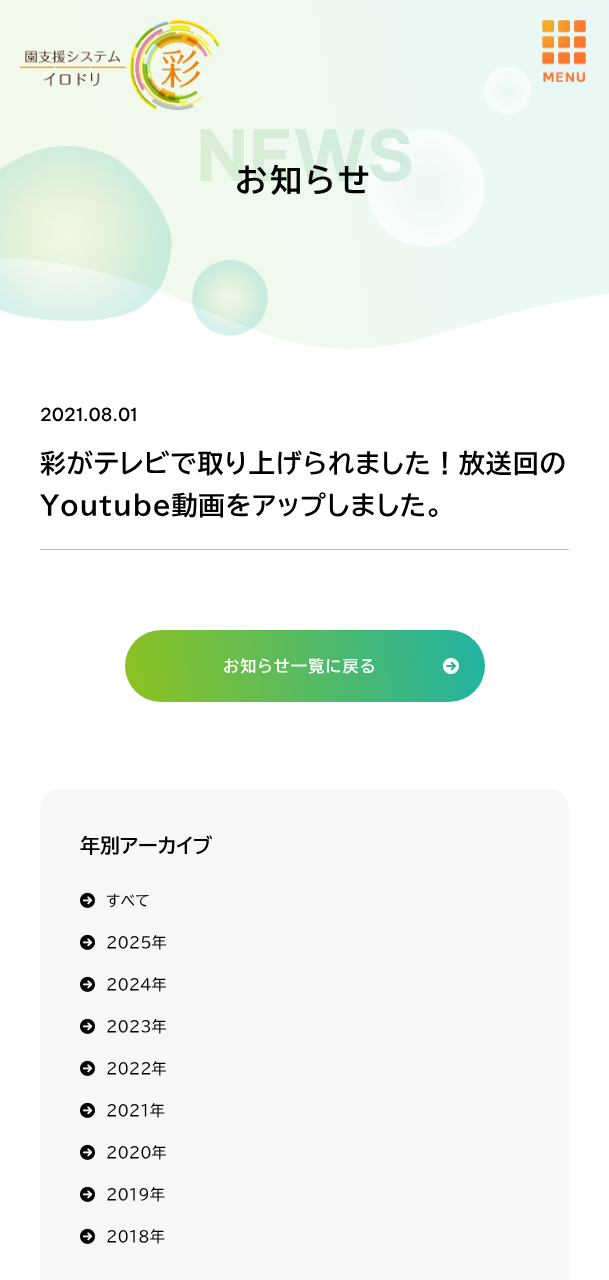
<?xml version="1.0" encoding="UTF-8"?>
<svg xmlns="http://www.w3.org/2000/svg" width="609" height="1280">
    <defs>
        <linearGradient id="g1" gradientUnits="userSpaceOnUse" x1="0" y1="156" x2="609" y2="156"><stop offset="0" stop-color="#E2F0C7"/><stop offset="1" stop-color="#C8E9EC"/></linearGradient>
        <linearGradient id="g2" gradientUnits="userSpaceOnUse" x1="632" y1="133" x2="-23" y2="248"><stop offset="0" stop-color="#E9F8F6"/><stop offset="1" stop-color="#F4FAE9"/></linearGradient>
        <linearGradient id="g3" gradientUnits="userSpaceOnUse" x1="486" y1="634" x2="124" y2="698"><stop offset="0" stop-color="#20B3A3"/><stop offset="1" stop-color="#8DC220"/></linearGradient>
    </defs>
    <rect width="100%" height="100%" fill="#FFFFFF"/>
    <rect x="0" y="0" width="609" height="349" fill="url(#g2)"/>
    <image x="20" y="20" width="200" height="90" href="img_01.png"/>
    <image x="542" y="20" width="44" height="62" href="img_02.png"/>
    <image x="367" y="67" width="164" height="180" href="img_05.png"/>
    <text x="196" y="181" font-family="Be Vietnam Pro" font-size="70" font-weight="700" fill="url(#g1)">NEWS</text>
    <text x="235" y="192" font-family="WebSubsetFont" font-size="32" font-weight="700" letter-spacing="3" fill="#000000">お知らせ</text>
    <image x="0" y="258" width="609" height="123" href="img_04.png"/>
    <image x="0" y="146" width="268" height="190" href="img_03.png"/>
    <rect x="40" y="549" width="529" height="1" fill="#A6CEC9"/>
    <text x="40" y="421" font-family="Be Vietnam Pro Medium" font-size="18" font-weight="500" fill="#000000">2021.08.01</text>
    <text font-family="WebSubsetFont" font-size="26" font-weight="700" letter-spacing="1" fill="#000000">
        <tspan x="40" y="473">彩がテレビで取り上げられました！放送回の</tspan>
        <tspan x="40" y="515">Youtube動画をアップしました。</tspan>
    </text>
    <rect x="125" y="630" width="360" height="72" rx="36" fill="url(#g3)"/>
    <text x="223" y="672" font-family="WebSubsetFont" font-size="16" font-weight="700" letter-spacing="1.25" fill="#FFFFFF">お知らせ一覧に戻る</text>
    <image x="443" y="658" width="16" height="16" href="img_06.png"/>
    <rect x="40" y="789" width="529" height="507" rx="20" fill="#F8F7F5"/>
    <text x="80" y="853" font-family="WebSubsetFont" font-size="20" font-weight="700" fill="#000000">年別アーカイブ</text>
    <image x="80" y="892" width="15" height="16" href="img_07.png"/>
    <text x="106" y="906" font-family="WebSubsetFont" font-size="15" fill="#000000">すべて</text>
    <image x="80" y="934" width="15" height="16" href="img_07.png"/>
    <text x="106" y="948" font-family="WebSubsetFont" font-size="15" fill="#000000">2025年</text>
    <image x="80" y="976" width="15" height="16" href="img_07.png"/>
    <text x="106" y="990" font-family="WebSubsetFont" font-size="15" fill="#000000">2024年</text>
    <image x="80" y="1018" width="15" height="16" href="img_07.png"/>
    <text x="106" y="1032" font-family="WebSubsetFont" font-size="15" fill="#000000">2023年</text>
    <image x="80" y="1060" width="15" height="16" href="img_07.png"/>
    <text x="106" y="1074" font-family="WebSubsetFont" font-size="15" fill="#000000">2022年</text>
    <image x="80" y="1102" width="15" height="16" href="img_07.png"/>
    <text x="106" y="1116" font-family="WebSubsetFont" font-size="15" fill="#000000">2021年</text>
    <image x="80" y="1144" width="15" height="16" href="img_07.png"/>
    <text x="106" y="1158" font-family="WebSubsetFont" font-size="15" fill="#000000">2020年</text>
    <image x="80" y="1186" width="15" height="16" href="img_07.png"/>
    <text x="106" y="1200" font-family="WebSubsetFont" font-size="15" fill="#000000">2019年</text>
    <image x="80" y="1228" width="15" height="16" href="img_07.png"/>
    <text x="106" y="1242" font-family="WebSubsetFont" font-size="15" fill="#000000">2018年</text>
</svg>
